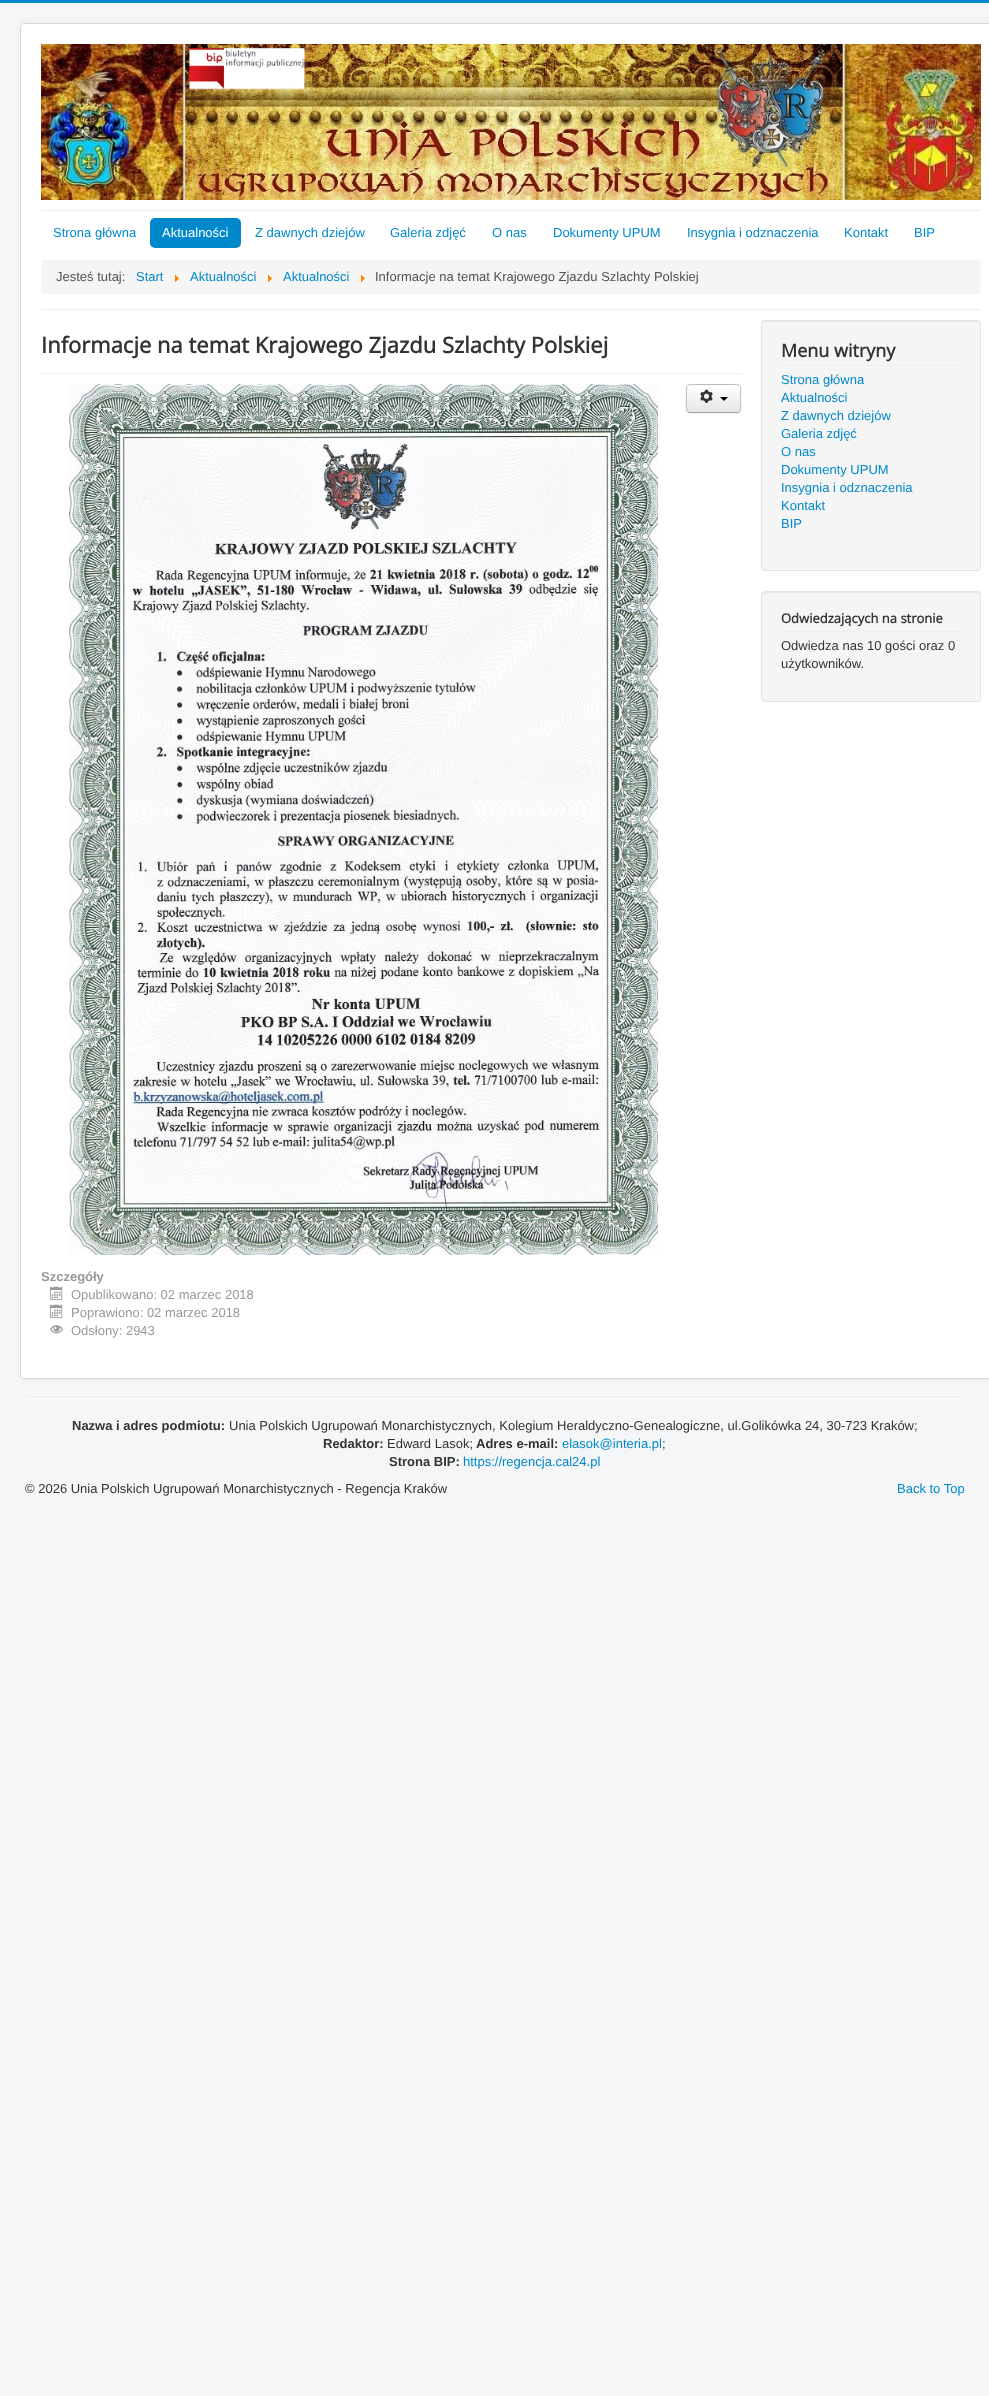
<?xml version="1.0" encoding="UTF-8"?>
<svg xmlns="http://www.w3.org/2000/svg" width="989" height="2396">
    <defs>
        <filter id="blur1" x="-50%" y="-200%" width="200%" height="500%"><feGaussianBlur stdDeviation="3"/></filter>
        <filter id="blur2" x="-50%" y="-200%" width="200%" height="500%"><feGaussianBlur stdDeviation="1"/></filter>
        <clipPath id="clip1"><rect x="686" y="384" width="55" height="29" rx="4"/></clipPath>
        <linearGradient id="g1" gradientUnits="userSpaceOnUse" x1="714" y1="385" x2="714" y2="412"><stop offset="0" stop-color="#FFFFFF"/><stop offset="1" stop-color="#E6E6E6"/></linearGradient>
    </defs>
    <rect width="100%" height="100%" fill="#F4F6F7"/>
    <rect x="0" y="0" width="989" height="3" fill="#0088CC"/>
    <rect x="20" y="23" width="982" height="1356" rx="4" fill="#000000" fill-opacity="0.05" filter="url(#blur1)"/>
    <rect x="20" y="23" width="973" height="1356" rx="4" fill="#FFFFFF"/>
    <rect x="20.5" y="23.5" width="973" height="1355" rx="3.5" fill="none" stroke="#000000" stroke-opacity="0.15"/>
    <image x="41" y="44" width="940" height="156" href="img_01.png"/>
    <rect x="41" y="210" width="940" height="1" fill="#ECECEC"/>
    <rect x="41" y="309" width="940" height="1" fill="#ECECEC"/>
    <text x="53" y="237" font-family="Liberation Sans" font-size="13" fill="#0088CC">Strona główna</text>
    <rect x="150" y="218" width="91" height="30" rx="5" fill="#0088CC"/>
    <text x="162" y="237" font-family="Liberation Sans" font-size="13" fill="#FFFFFF">Aktualności</text>
    <text x="255" y="237" font-family="Liberation Sans" font-size="13" fill="#0088CC">Z dawnych dziejów</text>
    <text x="390" y="237" font-family="Liberation Sans" font-size="13" fill="#0088CC">Galeria zdjęć</text>
    <text x="492" y="237" font-family="Liberation Sans" font-size="13" fill="#0088CC">O nas</text>
    <text x="553" y="237" font-family="Liberation Sans" font-size="13" fill="#0088CC">Dokumenty UPUM</text>
    <text x="687" y="237" font-family="Liberation Sans" font-size="13" fill="#0088CC">Insygnia i odznaczenia</text>
    <text x="844" y="237" font-family="Liberation Sans" font-size="13" fill="#0088CC">Kontakt</text>
    <text x="914" y="237" font-family="Liberation Sans" font-size="13" fill="#0088CC">BIP</text>
    <rect x="41" y="260" width="940" height="34" rx="4" fill="#F5F5F5"/>
    <text x="56" y="281" font-family="Liberation Sans" font-size="13" fill="#515151">Jesteś tutaj:</text>
    <text x="136" y="281" font-family="Liberation Sans" font-size="13" fill="#0088CC">Start</text>
    <image x="175" y="275" width="4" height="7" href="img_02.png"/>
    <text x="190" y="281" font-family="Liberation Sans" font-size="13" fill="#0088CC">Aktualności</text>
    <image x="268" y="275" width="4" height="7" href="img_02.png"/>
    <text x="283" y="281" font-family="Liberation Sans" font-size="13" fill="#0088CC">Aktualności</text>
    <image x="361" y="275" width="4" height="7" href="img_02.png"/>
    <text x="375" y="281" font-family="Liberation Sans" font-size="13" fill="#515151">Informacje na temat Krajowego Zjazdu Szlachty Polskiej</text>
    <rect x="41" y="373" width="700" height="1" fill="#EEEEEE"/>
    <text x="41" y="353" font-family="Open Sans" font-size="22" font-weight="700" fill="#333333">Informacje na temat Krajowego Zjazdu Szlachty Polskiej</text>
    <image x="69" y="384" width="589" height="871" href="img_03.png"/>
    <rect x="686" y="385" width="55" height="29" rx="4" fill="#000000" fill-opacity="0.05" filter="url(#blur2)"/>
    <rect x="686" y="384" width="55" height="29" rx="4" fill="#F5F5F5"/>
    <g clip-path="url(#clip1)">
        <rect x="686" y="385" width="55" height="27" fill="url(#g1)"/>
    </g>
    <path d="M 690 386 H 737 C 739 386 740 387 740 389 C 740 383 734 385 729 385 H 698 C 693 385 687 383 687 389 C 687 387 688 386 690 386 Z" fill="#FFFFFF"/>
    <path d="M 739.5 411.5 C 739 412 738 412.5 737 412.5 H 690 C 689 412.5 688 412 687.5 411.5" fill="none" stroke="#A2A2A2"/>
    <path d="M 687.5 411.5 C 685.5 409.5 686.5 401 686.5 398.5 C 686.5 384 684 384.5 698 384.5 H 729 C 743 384.5 740.5 384 740.5 398.5 C 740.5 401 741.5 409.5 739.5 411.5" fill="none" stroke="#BBBBBB"/>
    <image x="700" y="389" width="13" height="14" href="img_04.png"/>
    <path d="M 720 397 H 728 L 724 401 Z" fill="#000000"/>
    <text x="41" y="1281" font-family="Liberation Sans" font-size="13" font-weight="700" fill="#999999">Szczegóły</text>
    <image x="50" y="1286" width="13" height="14" href="img_05.png"/>
    <text x="71" y="1299" font-family="Liberation Sans" font-size="13" fill="#999999">Opublikowano: 02 marzec 2018</text>
    <image x="50" y="1304" width="13" height="14" href="img_05.png"/>
    <text x="71" y="1317" font-family="Liberation Sans" font-size="13" fill="#999999">Poprawiono: 02 marzec 2018</text>
    <image x="50" y="1325" width="13" height="9" href="img_06.png"/>
    <text x="71" y="1335" font-family="Liberation Sans" font-size="13" fill="#999999">Odsłony: 2943</text>
    <rect x="761" y="320" width="220" height="251" rx="4" fill="#F5F5F5"/>
    <path d="M 765 322 H 977 C 979 322 980 323 980 325 V 324 C 980 322 979 321 977 321 H 765 C 763 321 762 322 762 324 V 325 C 762 323 763 322 765 322 Z" fill="#E9E9E9"/>
    <rect x="761.5" y="320.5" width="219" height="250" rx="3.5" fill="none" stroke="#E3E3E3"/>
    <rect x="781" y="365" width="180" height="1" fill="#EEEEEE"/>
    <text x="781" y="357" font-family="Open Sans" font-size="18" font-weight="700" fill="#333333">Menu witryny</text>
    <text font-family="Liberation Sans" font-size="13" fill="#0088CC">
        <tspan x="781" y="384">Strona główna</tspan>
        <tspan x="781" y="402">Aktualności</tspan>
        <tspan x="781" y="420">Z dawnych dziejów</tspan>
        <tspan x="781" y="438">Galeria zdjęć</tspan>
        <tspan x="781" y="456">O nas</tspan>
        <tspan x="781" y="474">Dokumenty UPUM</tspan>
        <tspan x="781" y="492">Insygnia i odznaczenia</tspan>
        <tspan x="781" y="510">Kontakt</tspan>
        <tspan x="781" y="528">BIP</tspan>
    </text>
    <rect x="761" y="591" width="220" height="111" rx="4" fill="#F5F5F5"/>
    <path d="M 765 593 H 977 C 979 593 980 594 980 596 V 595 C 980 593 979 592 977 592 H 765 C 763 592 762 593 762 595 V 596 C 762 594 763 593 765 593 Z" fill="#E9E9E9"/>
    <rect x="761.5" y="591.5" width="219" height="110" rx="3.5" fill="none" stroke="#E3E3E3"/>
    <rect x="781" y="631" width="180" height="1" fill="#EEEEEE"/>
    <text x="781" y="623" font-family="Open Sans" font-size="13" font-weight="700" fill="#333333">Odwiedzających na stronie</text>
    <text font-family="Liberation Sans" font-size="13" fill="#333333">
        <tspan x="781" y="650">Odwiedza nas 10 gości oraz 0</tspan>
        <tspan x="781" y="668">użytkowników.</tspan>
    </text>
    <rect x="25" y="1397" width="940" height="1" fill="#EEEEEE"/>
    <rect x="25" y="1398" width="940" height="1" fill="#FFFFFF"/>
    <text x="72" y="1430" font-family="Liberation Sans" font-size="13" font-weight="700" fill="#333333">Nazwa i adres podmiotu:</text>
    <text x="229" y="1430" font-family="Liberation Sans" font-size="13" fill="#333333">Unia Polskich Ugrupowań Monarchistycznych, Kolegium Heraldyczno-Genealogiczne, ul.Golikówka 24, 30-723 Kraków;</text>
    <text x="323" y="1448" font-family="Liberation Sans" font-size="13" font-weight="700" fill="#333333">Redaktor:</text>
    <text x="387" y="1448" font-family="Liberation Sans" font-size="13" fill="#333333">Edward Lasok;</text>
    <text x="476" y="1448" font-family="Liberation Sans" font-size="13" font-weight="700" fill="#333333">Adres e-mail:</text>
    <text x="562" y="1448" font-family="Liberation Sans" font-size="13" fill="#0088CC">elasok@interia.pl</text>
    <text x="662" y="1448" font-family="Liberation Sans" font-size="13" fill="#333333">;</text>
    <text x="389" y="1466" font-family="Liberation Sans" font-size="13" font-weight="700" fill="#333333">Strona BIP:</text>
    <text x="463" y="1466" font-family="Liberation Sans" font-size="13" fill="#0088CC">https://regencja.cal24.pl</text>
    <text x="25" y="1493" font-family="Liberation Sans" font-size="13" fill="#333333">© 2026 Unia Polskich Ugrupowań Monarchistycznych - Regencja Kraków</text>
    <text x="897" y="1493" font-family="Liberation Sans" font-size="13" fill="#0088CC">Back to Top</text>
</svg>
